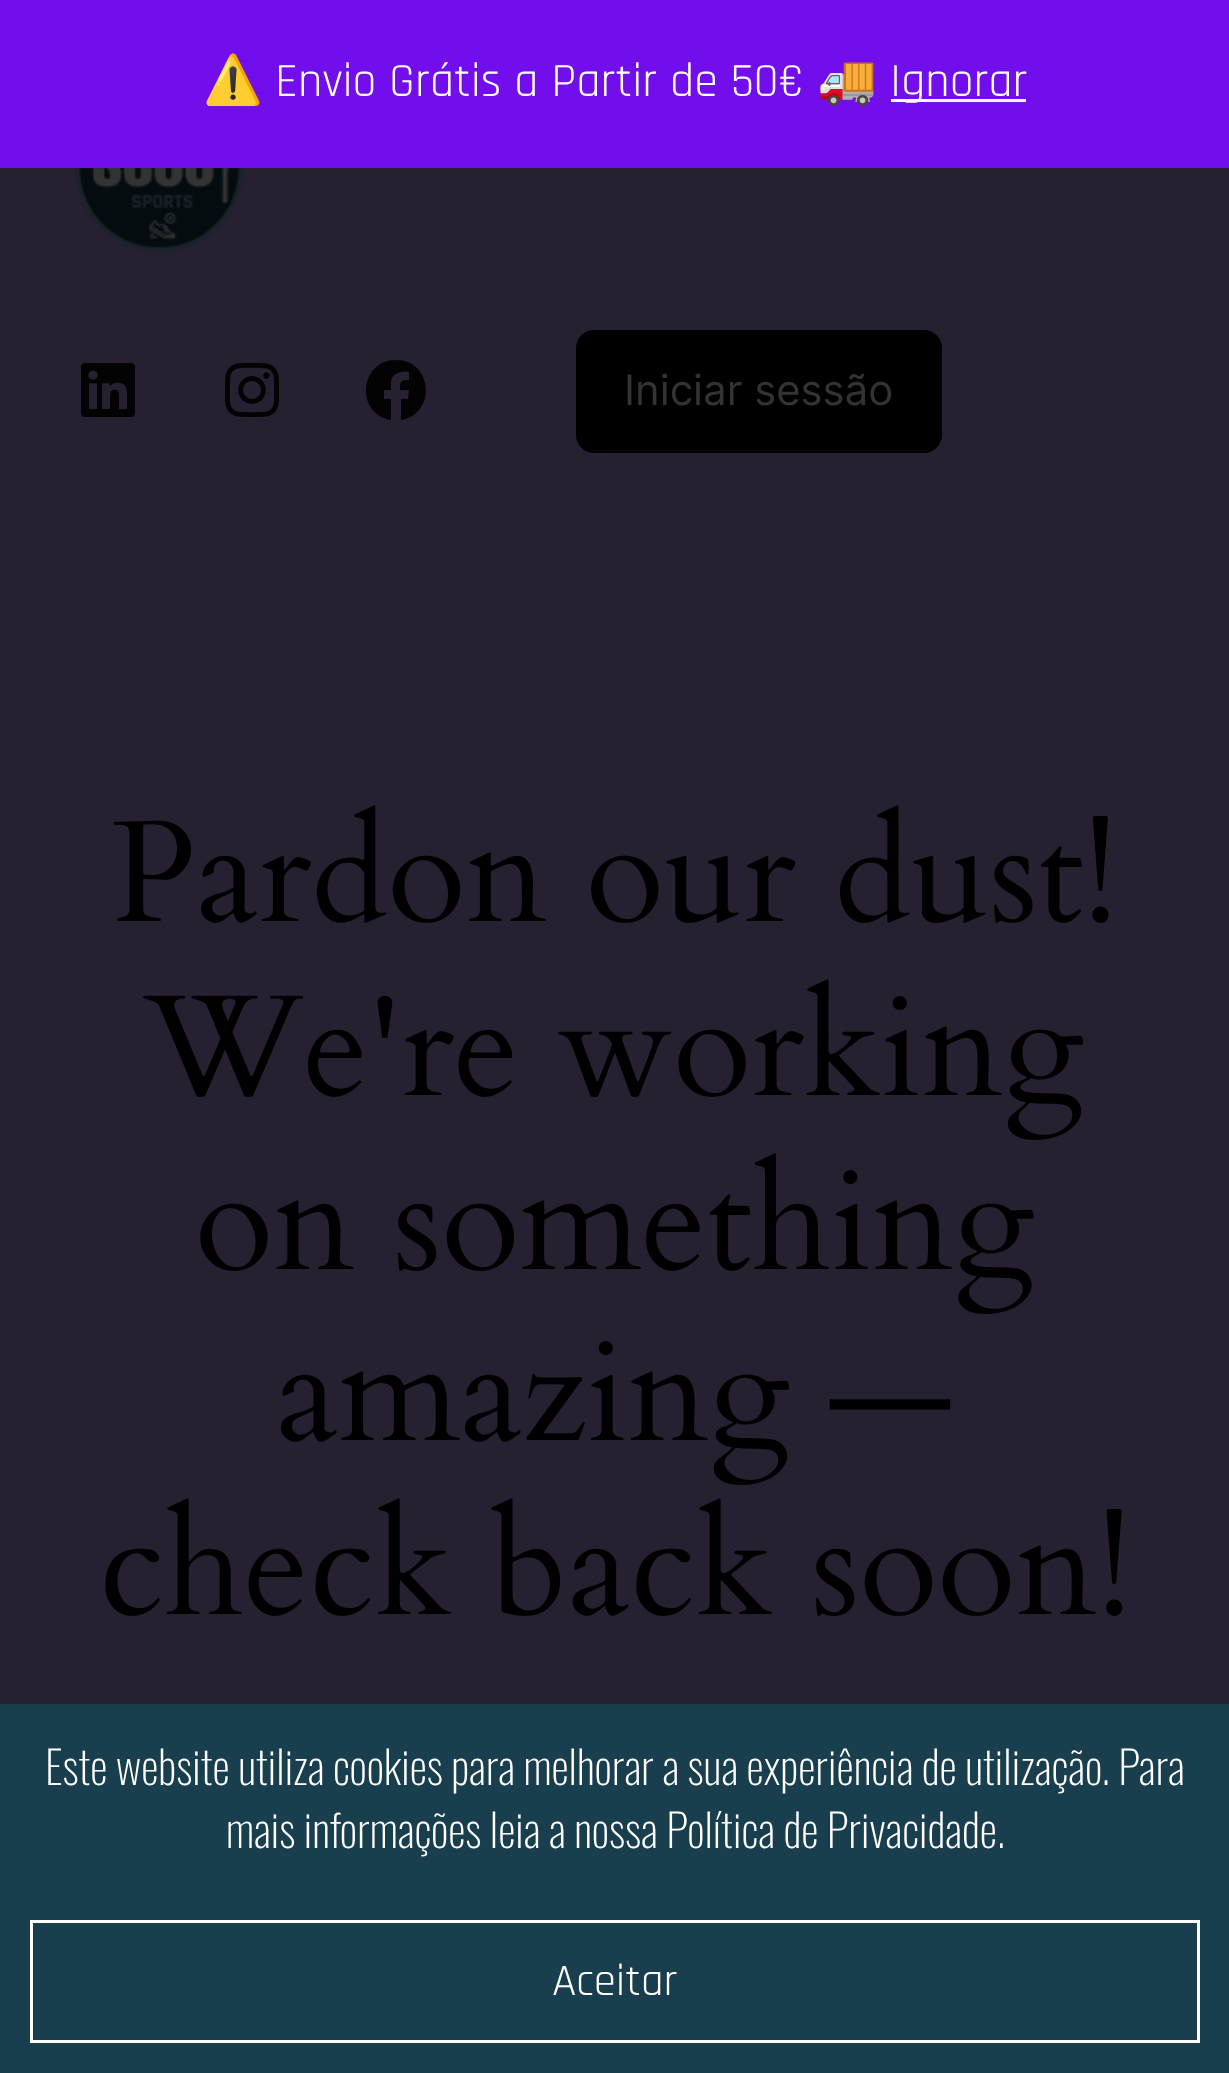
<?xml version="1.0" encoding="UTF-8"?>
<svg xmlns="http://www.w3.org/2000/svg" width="1229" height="2073">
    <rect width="100%" height="100%" fill="#262030"/>
    <rect x="0" y="0" width="1229" height="168" fill="#720EEC"/>
    <text x="203" y="96" font-family="Noto Color Emoji" font-size="48" fill="#FFFFFF">⚠️</text>
    <text x="275" y="96" font-family="Rajdhani" font-size="48" fill="#FFFFFF">Envio Grátis a Partir de 50€</text>
    <text x="817" y="96" font-family="Noto Color Emoji" font-size="48" fill="#FFFFFF">🚚</text>
    <rect x="891" y="99" width="135" height="3" fill="#FCFBFE"/>
    <text x="890" y="96" font-family="Rajdhani" font-size="48" fill="#FFFFFF">Ignorar</text>
    <image x="75" y="168" width="169" height="85" href="img_01.png"/>
    <image x="81" y="363" width="54" height="54" href="img_02.png"/>
    <image x="225" y="363" width="54" height="54" href="img_03.png"/>
    <path d="M 396 360 C 359 360 355 414 391 420 V 399 H 384 V 390 H 391 V 381 C 393 372 402 371 409 372 V 380 C 400 380 400 382 400 390 H 409 L 408 399 H 401 V 420 C 437 414 433 360 396 360 Z" fill="#030303"/>
    <rect x="576" y="330" width="366" height="123" rx="18" fill="#000000"/>
    <text x="624" y="405" font-family="Inter" font-size="42" fill="#333333">Iniciar sessão</text>
    <image x="113" y="805" width="996" height="118" href="img_04.png"/>
    <image x="143" y="979" width="941" height="161" href="img_05.png"/>
    <image x="200" y="1153" width="834" height="161" href="img_06.png"/>
    <image x="280" y="1341" width="671" height="144" href="img_07.png"/>
    <image x="105" y="1498" width="1018" height="118" href="img_08.png"/>
    <rect x="0" y="1704" width="1229" height="369" fill="#193E4D"/>
    <text x="45" y="1785" font-family="Oswald" font-size="45" font-weight="200" fill="#FFFFFF">Este website utiliza cookies para melhorar a sua experiência de utilização. Para</text>
    <text x="226" y="1848" font-family="Oswald" font-size="45" font-weight="200" fill="#FFFFFF">mais informações leia a nossa Política de Privacidade.</text>
    <rect x="31.5" y="1921.5" width="1167" height="120" fill="none" stroke="#FFFFFF" stroke-width="3"/>
    <text x="552" y="1995" font-family="Rajdhani" font-size="45" fill="#FFFFFF">Aceitar</text>
</svg>
